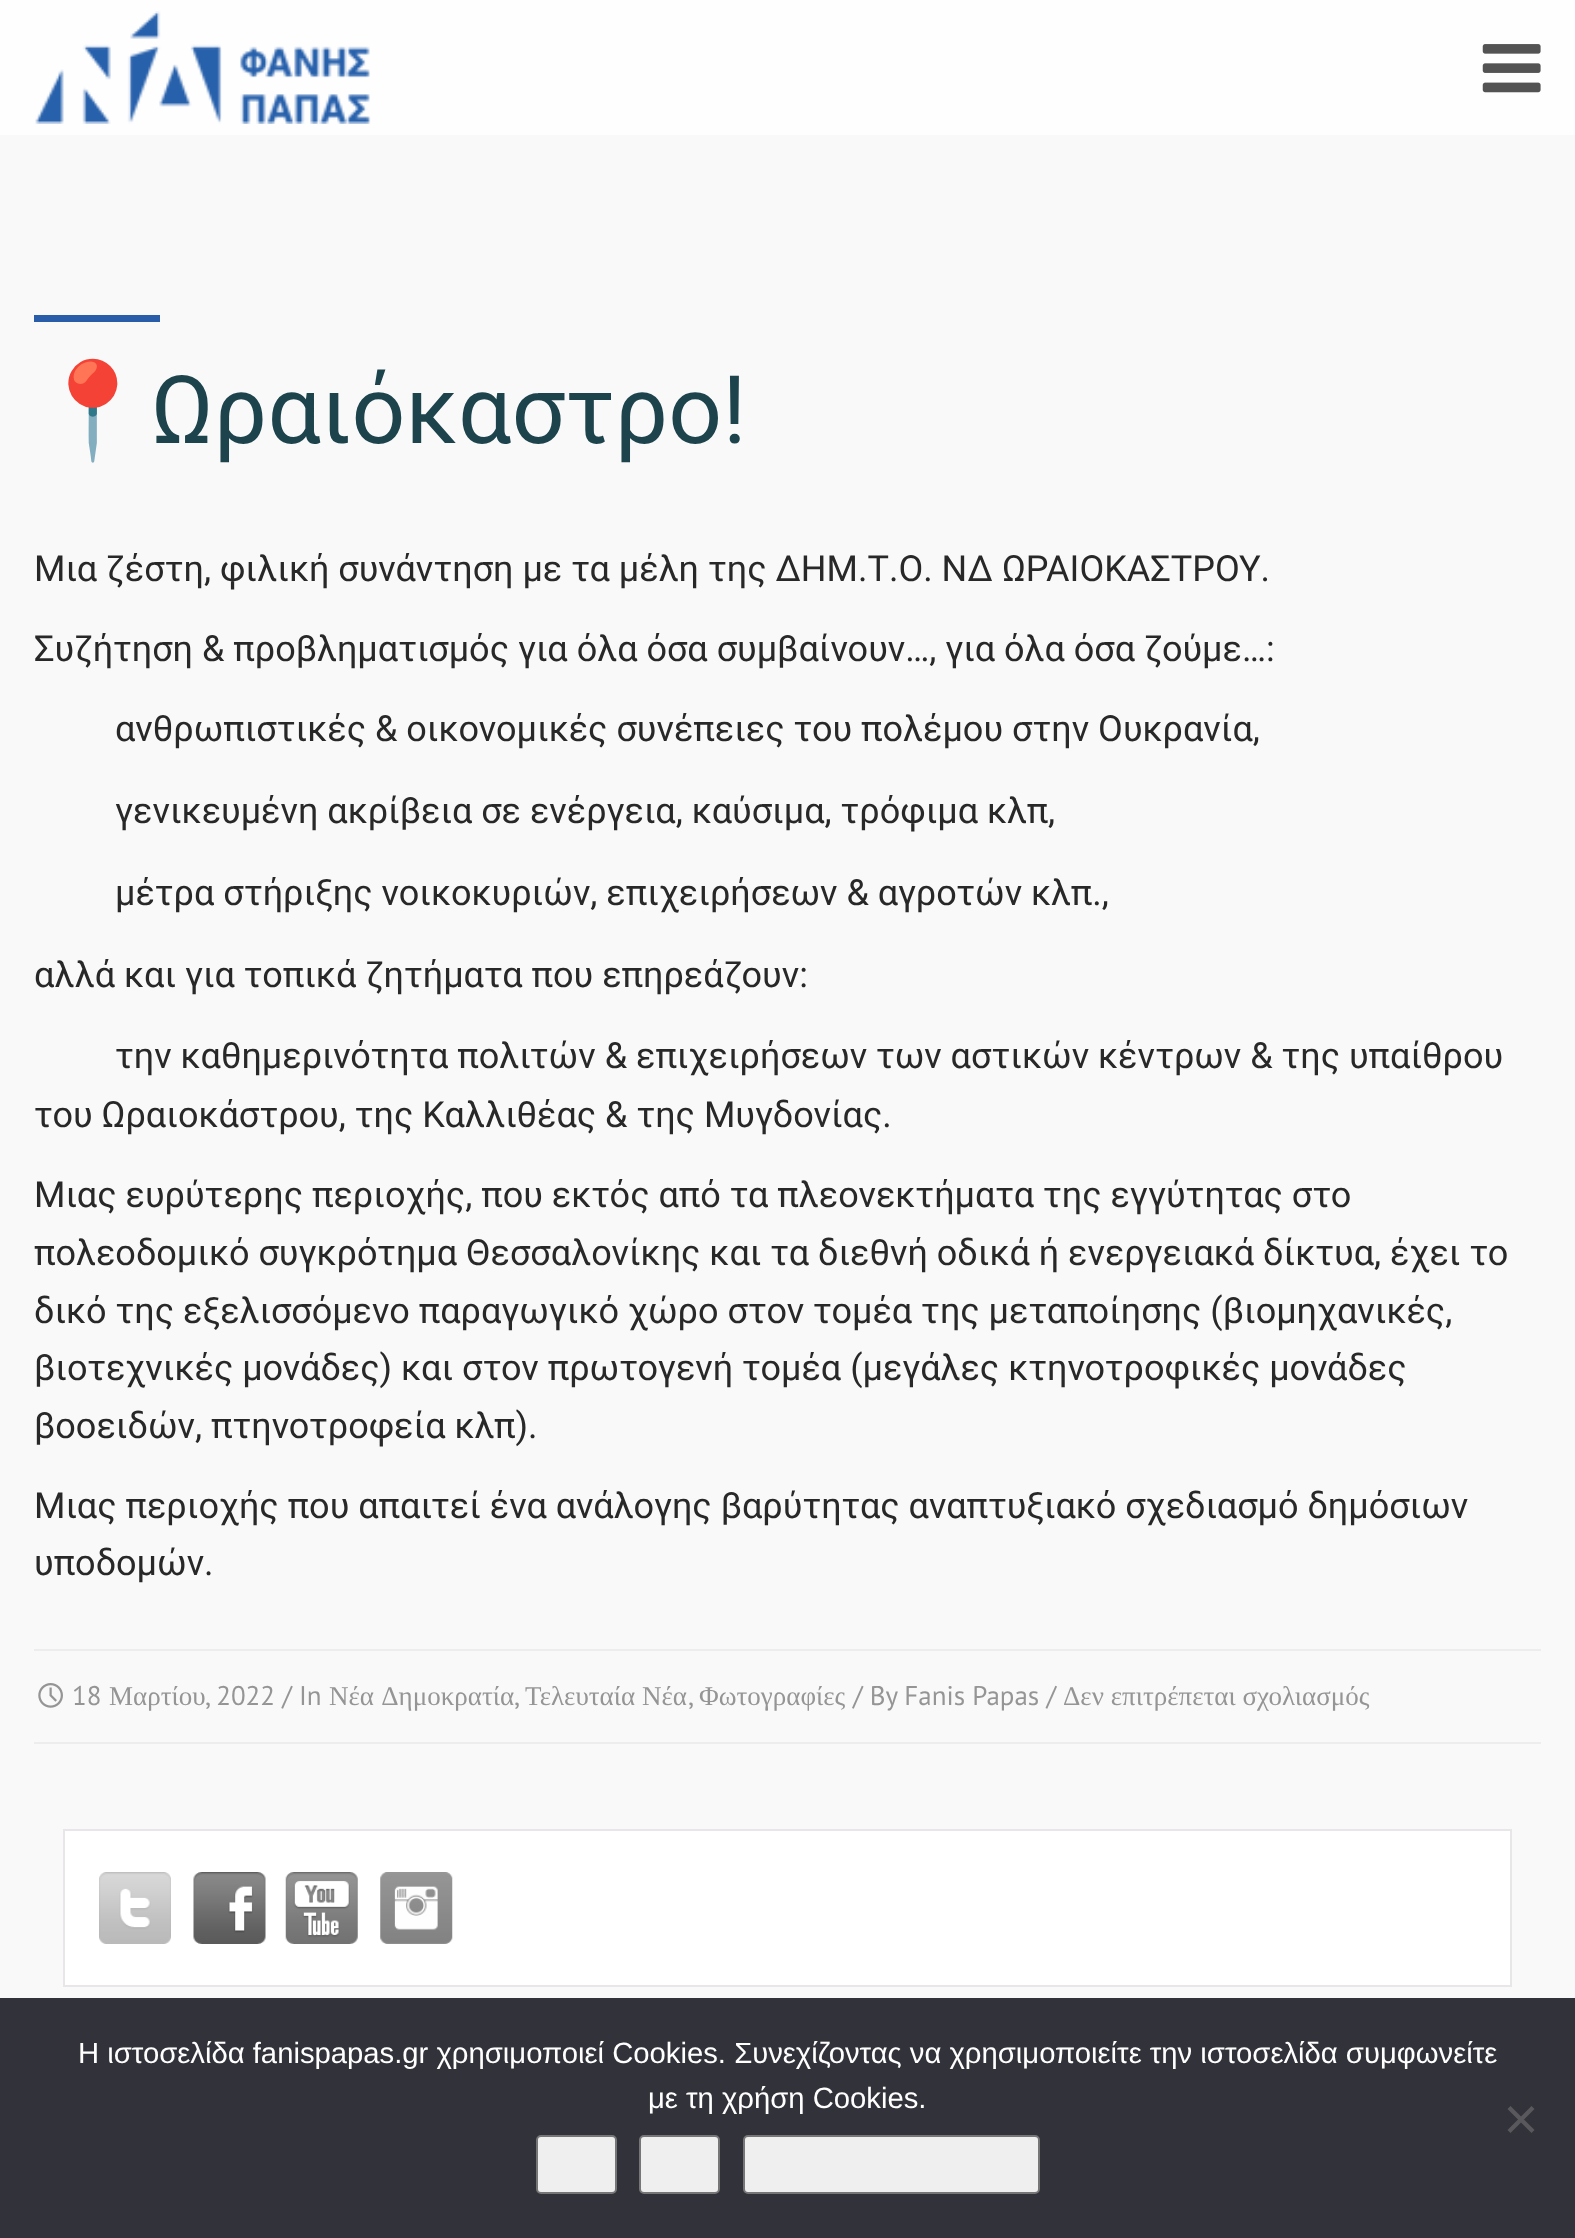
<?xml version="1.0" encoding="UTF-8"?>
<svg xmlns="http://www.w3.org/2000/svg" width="1575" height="2238">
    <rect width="100%" height="100%" fill="#F9F9F9"/>
    <rect x="0" y="0" width="1575" height="135" fill="#FEFEFE"/>
    <image x="35" y="11" width="336" height="113" href="img_01.png"/>
    <image x="1482" y="44" width="59" height="49" href="img_02.png"/>
    <rect x="34" y="315" width="126" height="7" fill="#295CA9"/>
    <text x="34" y="443" font-family="Noto Color Emoji" font-size="94.5" fill="#1D434C">📍</text>
    <text x="151" y="443" font-family="Roboto" font-size="94.5" fill="#1D434C">Ωραιόκαστρο!</text>
    <text x="34" y="581" font-family="Roboto" font-size="36" fill="#282828">Μια ζέστη, φιλική συνάντηση με τα μέλη της ΔΗΜ.Τ.Ο. ΝΔ ΩΡΑΙΟΚΑΣΤΡΟΥ.</text>
    <text x="34" y="661" font-family="Roboto" font-size="36" fill="#282828">Συζήτηση &amp; προβληματισμός για όλα όσα συμβαίνουν…, για όλα όσα ζούμε…:</text>
    <text x="115" y="741" font-family="Roboto" font-size="36" fill="#282828">ανθρωπιστικές &amp; οικονομικές συνέπειες του πολέμου στην Ουκρανία,</text>
    <text x="115" y="823" font-family="Roboto" font-size="36" fill="#282828">γενικευμένη ακρίβεια σε ενέργεια, καύσιμα, τρόφιμα κλπ,</text>
    <text x="115" y="905" font-family="Roboto" font-size="36" fill="#282828">μέτρα στήριξης νοικοκυριών, επιχειρήσεων &amp; αγροτών κλπ.,</text>
    <text x="34" y="987" font-family="Roboto" font-size="36" fill="#282828">αλλά και για τοπικά ζητήματα που επηρεάζουν:</text>
    <text x="115" y="1068" font-family="Roboto" font-size="36" fill="#282828">την καθημερινότητα πολιτών &amp; επιχειρήσεων των αστικών κέντρων &amp; της υπαίθρου</text>
    <text x="34" y="1127" font-family="Roboto" font-size="36" fill="#282828">του Ωραιοκάστρου, της Καλλιθέας &amp; της Μυγδονίας.</text>
    <text font-family="Roboto" font-size="36" fill="#282828">
        <tspan x="34" y="1207">Μιας ευρύτερης περιοχής, που εκτός από τα πλεονεκτήματα της εγγύτητας στο</tspan>
        <tspan x="34" y="1265">πολεοδομικό συγκρότημα Θεσσαλονίκης και τα διεθνή οδικά ή ενεργειακά δίκτυα, έχει το</tspan>
        <tspan x="34" y="1323">δικό της εξελισσόμενο παραγωγικό χώρο στον τομέα της μεταποίησης (βιομηχανικές,</tspan>
        <tspan x="34" y="1380">βιοτεχνικές μονάδες) και στον πρωτογενή τομέα (μεγάλες κτηνοτροφικές μονάδες</tspan>
        <tspan x="34" y="1438">βοοειδών, πτηνοτροφεία κλπ).</tspan>
    </text>
    <text font-family="Roboto" font-size="36" fill="#282828">
        <tspan x="34" y="1518">Μιας περιοχής που απαιτεί ένα ανάλογης βαρύτητας αναπτυξιακό σχεδιασμό δημόσιων</tspan>
        <tspan x="34" y="1575">υποδομών.</tspan>
    </text>
    <rect x="34" y="1649" width="1507" height="2" fill="#EDEDED"/>
    <rect x="34" y="1742" width="1507" height="2" fill="#EDEDED"/>
    <image x="38" y="1683" width="25" height="25" href="img_03.png"/>
    <text x="72" y="1705" font-family="PT Sans" font-size="27" fill="#959595">18</text>
    <text x="109" y="1705" font-family="Liberation Serif" font-size="27" fill="#959595">Μαρτίου</text>
    <text x="205" y="1705" font-family="PT Sans" font-size="27" fill="#959595">, 2022 / In</text>
    <text x="329" y="1705" word-spacing="2" font-family="Liberation Serif" font-size="27" fill="#959595">Νέα Δημοκρατία</text>
    <text x="514" y="1705" font-family="PT Sans" font-size="27" fill="#959595">,</text>
    <text x="525" y="1705" font-family="Liberation Serif" font-size="27" fill="#959595">Τελευταία Νέα</text>
    <text x="688" y="1705" font-family="PT Sans" font-size="27" fill="#959595">,</text>
    <text x="699" y="1705" font-family="Liberation Serif" font-size="27" fill="#959595">Φωτογραφίες</text>
    <text x="853" y="1705" font-family="PT Sans" font-size="27" fill="#959595">/ By Fanis Papas /</text>
    <text x="1063" y="1705" font-family="Liberation Serif" font-size="27" fill="#959595">Δεν επιτρέπεται σχολιασμός</text>
    <rect x="64" y="1830" width="1447" height="156" fill="#FFFFFF" stroke="#E8E6E8" stroke-width="2"/>
    <image x="99" y="1872" width="72" height="72" href="img_04.png"/>
    <image x="193" y="1872" width="73" height="72" href="img_05.png"/>
    <image x="285" y="1872" width="73" height="72" href="img_06.png"/>
    <image x="380" y="1872" width="73" height="72" href="img_07.png"/>
    <rect x="0" y="1998" width="1575" height="240" fill="#32323A"/>
    <text x="78" y="2063" font-family="Liberation Sans" font-size="29.25" fill="#FFFFFF">Η ιστοσελίδα fanispapas.gr χρησιμοποιεί Cookies. Συνεχίζοντας να χρησιμοποιείτε την ιστοσελίδα συμφωνείτε</text>
    <text x="648" y="2108" font-family="Liberation Sans" font-size="29.25" fill="#FFFFFF">με τη χρήση Cookies.</text>
    <path d="M 1531.5 2106 L 1534.5 2109 L 1510.5 2133 L 1507.5 2130 Z" fill="#59595D"/>
    <path d="M 1507.5 2109 L 1510.5 2106 L 1534.5 2130 L 1531.5 2133 Z" fill="#59595D"/>
    <rect x="537" y="2136" width="79" height="57" rx="4" fill="#EFEFEF" stroke="#767676" stroke-width="2"/>
    <rect x="640" y="2136" width="79" height="57" rx="4" fill="#EFEFEF" stroke="#767676" stroke-width="2"/>
    <rect x="744" y="2136" width="295" height="57" rx="4" fill="#EFEFEF" stroke="#767676" stroke-width="2"/>
</svg>
